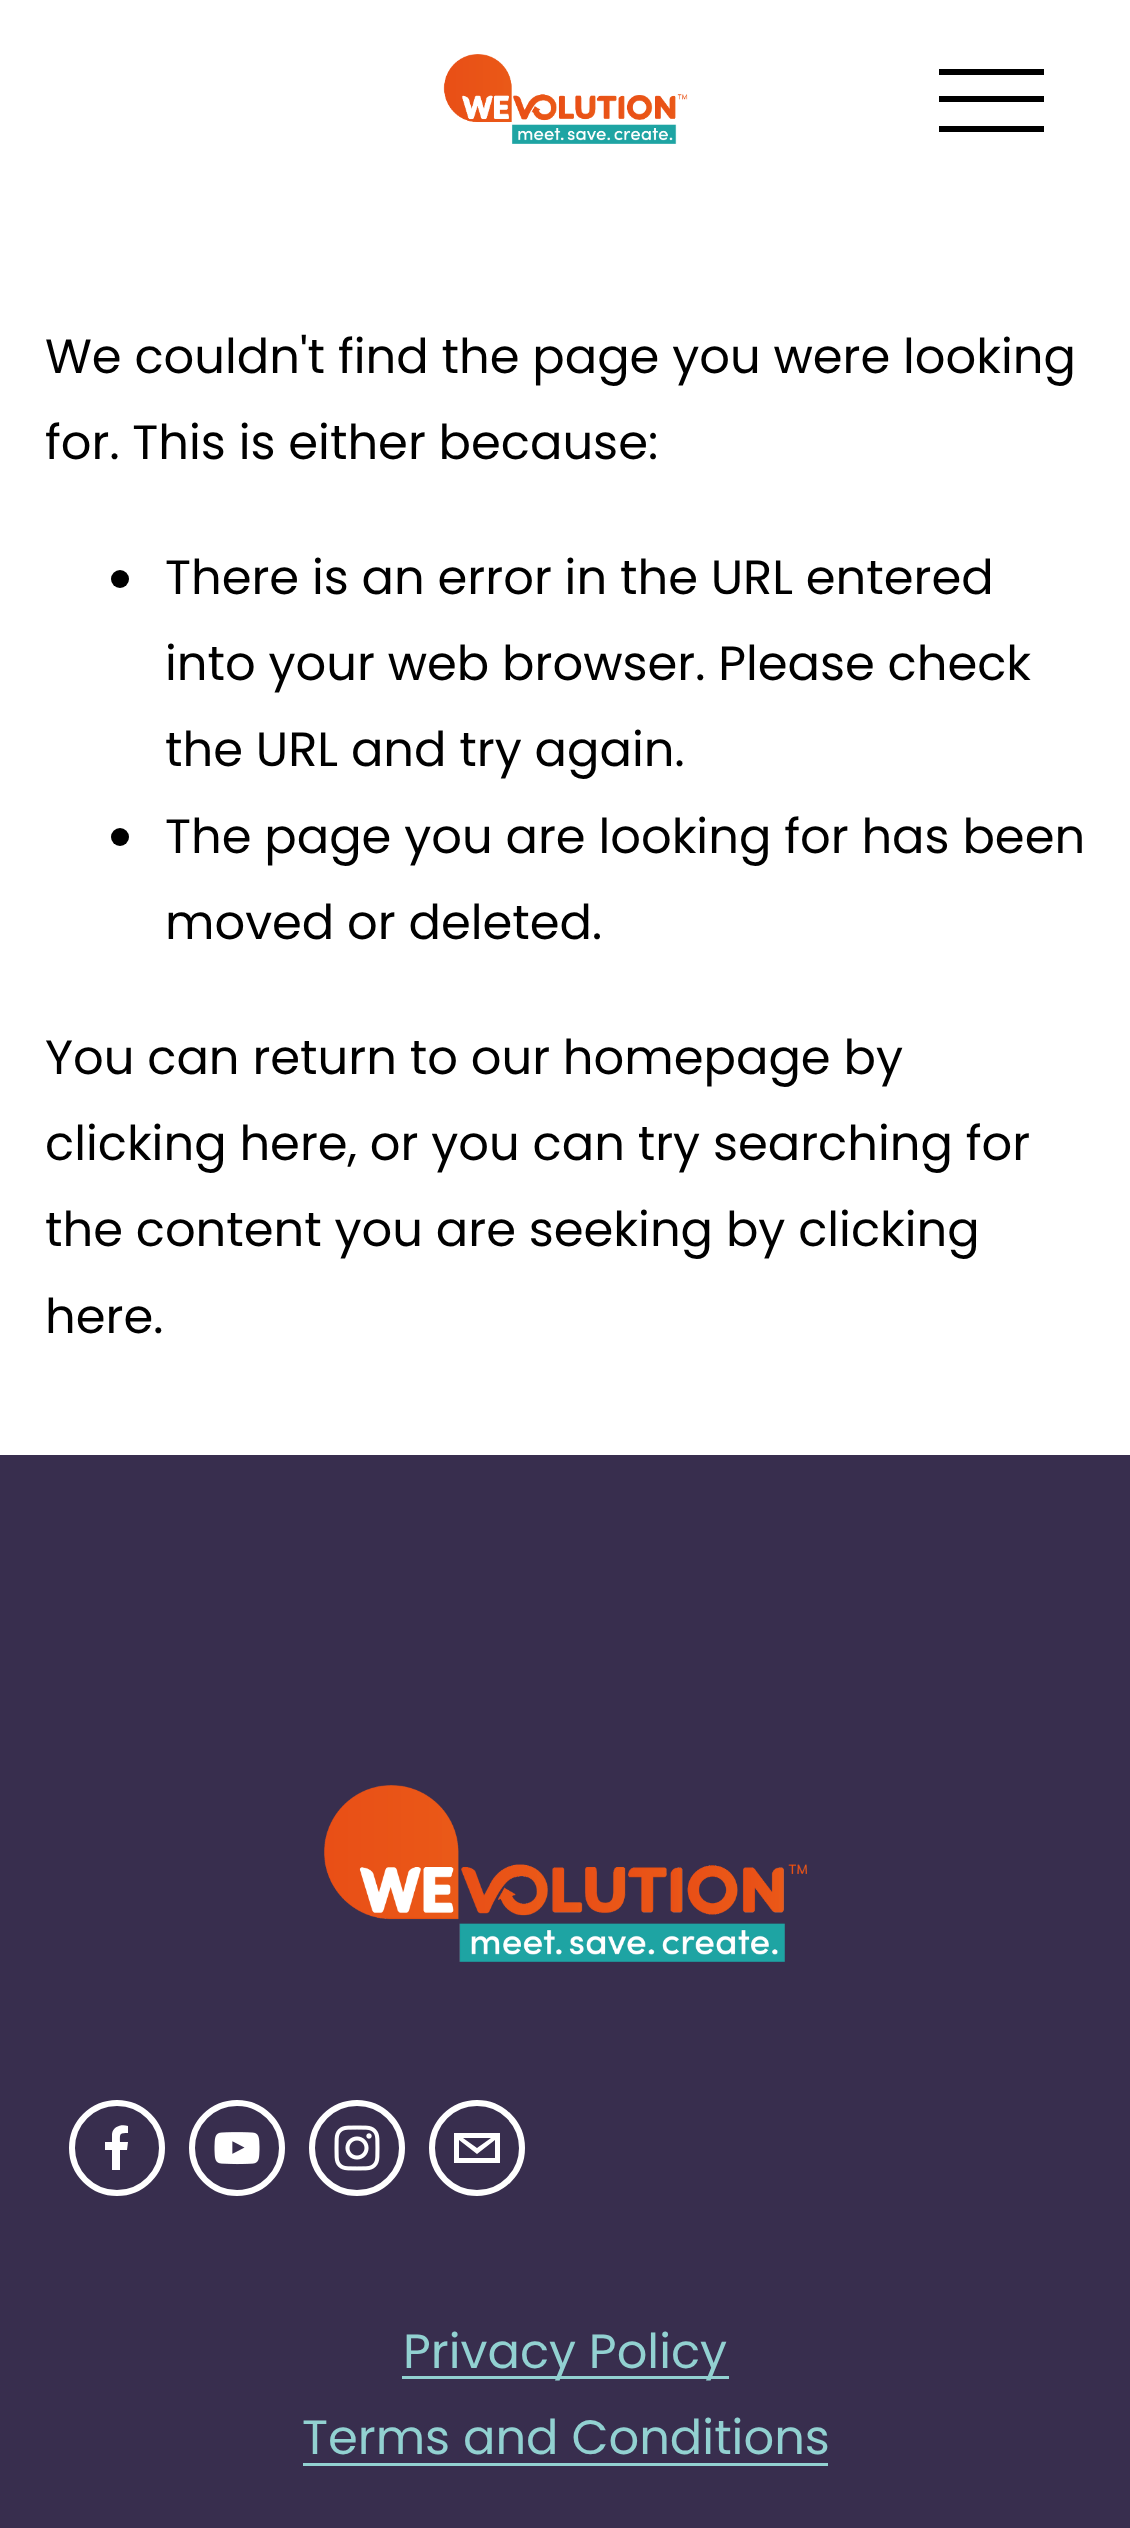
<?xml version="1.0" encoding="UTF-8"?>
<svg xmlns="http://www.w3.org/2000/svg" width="1130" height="2528">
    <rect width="100%" height="100%" fill="#FFFFFF"/>
    <image x="443" y="54" width="245" height="90" href="img_01.png"/>
    <rect x="939" y="69" width="105" height="6" fill="#000000"/>
    <rect x="939" y="96" width="105" height="6" fill="#000000"/>
    <rect x="939" y="126" width="105" height="6" fill="#000000"/>
    <text font-family="Poppins" font-size="48" fill="#000000">
        <tspan x="45" y="373">We couldn't find the page you were looking</tspan>
        <tspan x="45" y="459">for. This is either because:</tspan>
    </text>
    <circle cx="120" cy="579" r="9" fill="#000000"/>
    <text font-family="Poppins" font-size="48" fill="#000000">
        <tspan x="165" y="594">There is an error in the URL entered</tspan>
        <tspan x="165" y="680">into your web browser. Please check</tspan>
        <tspan x="165" y="766">the URL and try again.</tspan>
    </text>
    <circle cx="120" cy="837" r="9" fill="#000000"/>
    <text font-family="Poppins" font-size="48" fill="#000000">
        <tspan x="165" y="853">The page you are looking for has been</tspan>
        <tspan x="165" y="939">moved or deleted.</tspan>
    </text>
    <text font-family="Poppins" font-size="48" fill="#000000">
        <tspan x="45" y="1074">You can return to our homepage by</tspan>
        <tspan x="45" y="1160">clicking here, or you can try searching for</tspan>
        <tspan x="45" y="1246">the content you are seeking by clicking</tspan>
        <tspan x="45" y="1333">here.</tspan>
    </text>
    <rect x="0" y="1455" width="1130" height="1073" fill="#382E4E"/>
    <image x="324" y="1785" width="483" height="177" href="img_02.png"/>
    <circle cx="117" cy="2148" r="45" fill="none" stroke="#FFFFFF" stroke-width="6"/>
    <path d="M 120 2170 V 2150 H 127 L 128 2142 H 120 C 120 2134 119 2133 128 2133 V 2126 C 122 2124 113 2126 112 2134 V 2142 H 105 V 2150 H 112 V 2170 Z" fill="#FFFFFF"/>
    <circle cx="237" cy="2148" r="45" fill="none" stroke="#FFFFFF" stroke-width="6"/>
    <image x="214" y="2132" width="46" height="33" href="img_03.png"/>
    <circle cx="357" cy="2148" r="45" fill="none" stroke="#FFFFFF" stroke-width="6"/>
    <image x="334" y="2125" width="46" height="46" href="img_04.png"/>
    <circle cx="477" cy="2148" r="45" fill="none" stroke="#FFFFFF" stroke-width="6"/>
    <path d="M 454 2133 V 2163 H 500 V 2133 Z M 491 2138 L 477 2148 L 463 2138 Z M 459 2158 V 2140 L 477 2154 L 495 2140 V 2158 Z" fill="#FFFFFF"/>
    <rect x="402" y="2376" width="327" height="3" fill="#92D1D1"/>
    <text x="403" y="2368" font-family="Poppins" font-size="48" fill="#92D1D1">Privacy Policy</text>
    <text x="302" y="2454" font-family="Poppins" font-size="48" fill="#92D1D1">Terms and Conditions</text>
    <rect x="303" y="2463" width="525" height="3" fill="#92D1D1"/>
</svg>
